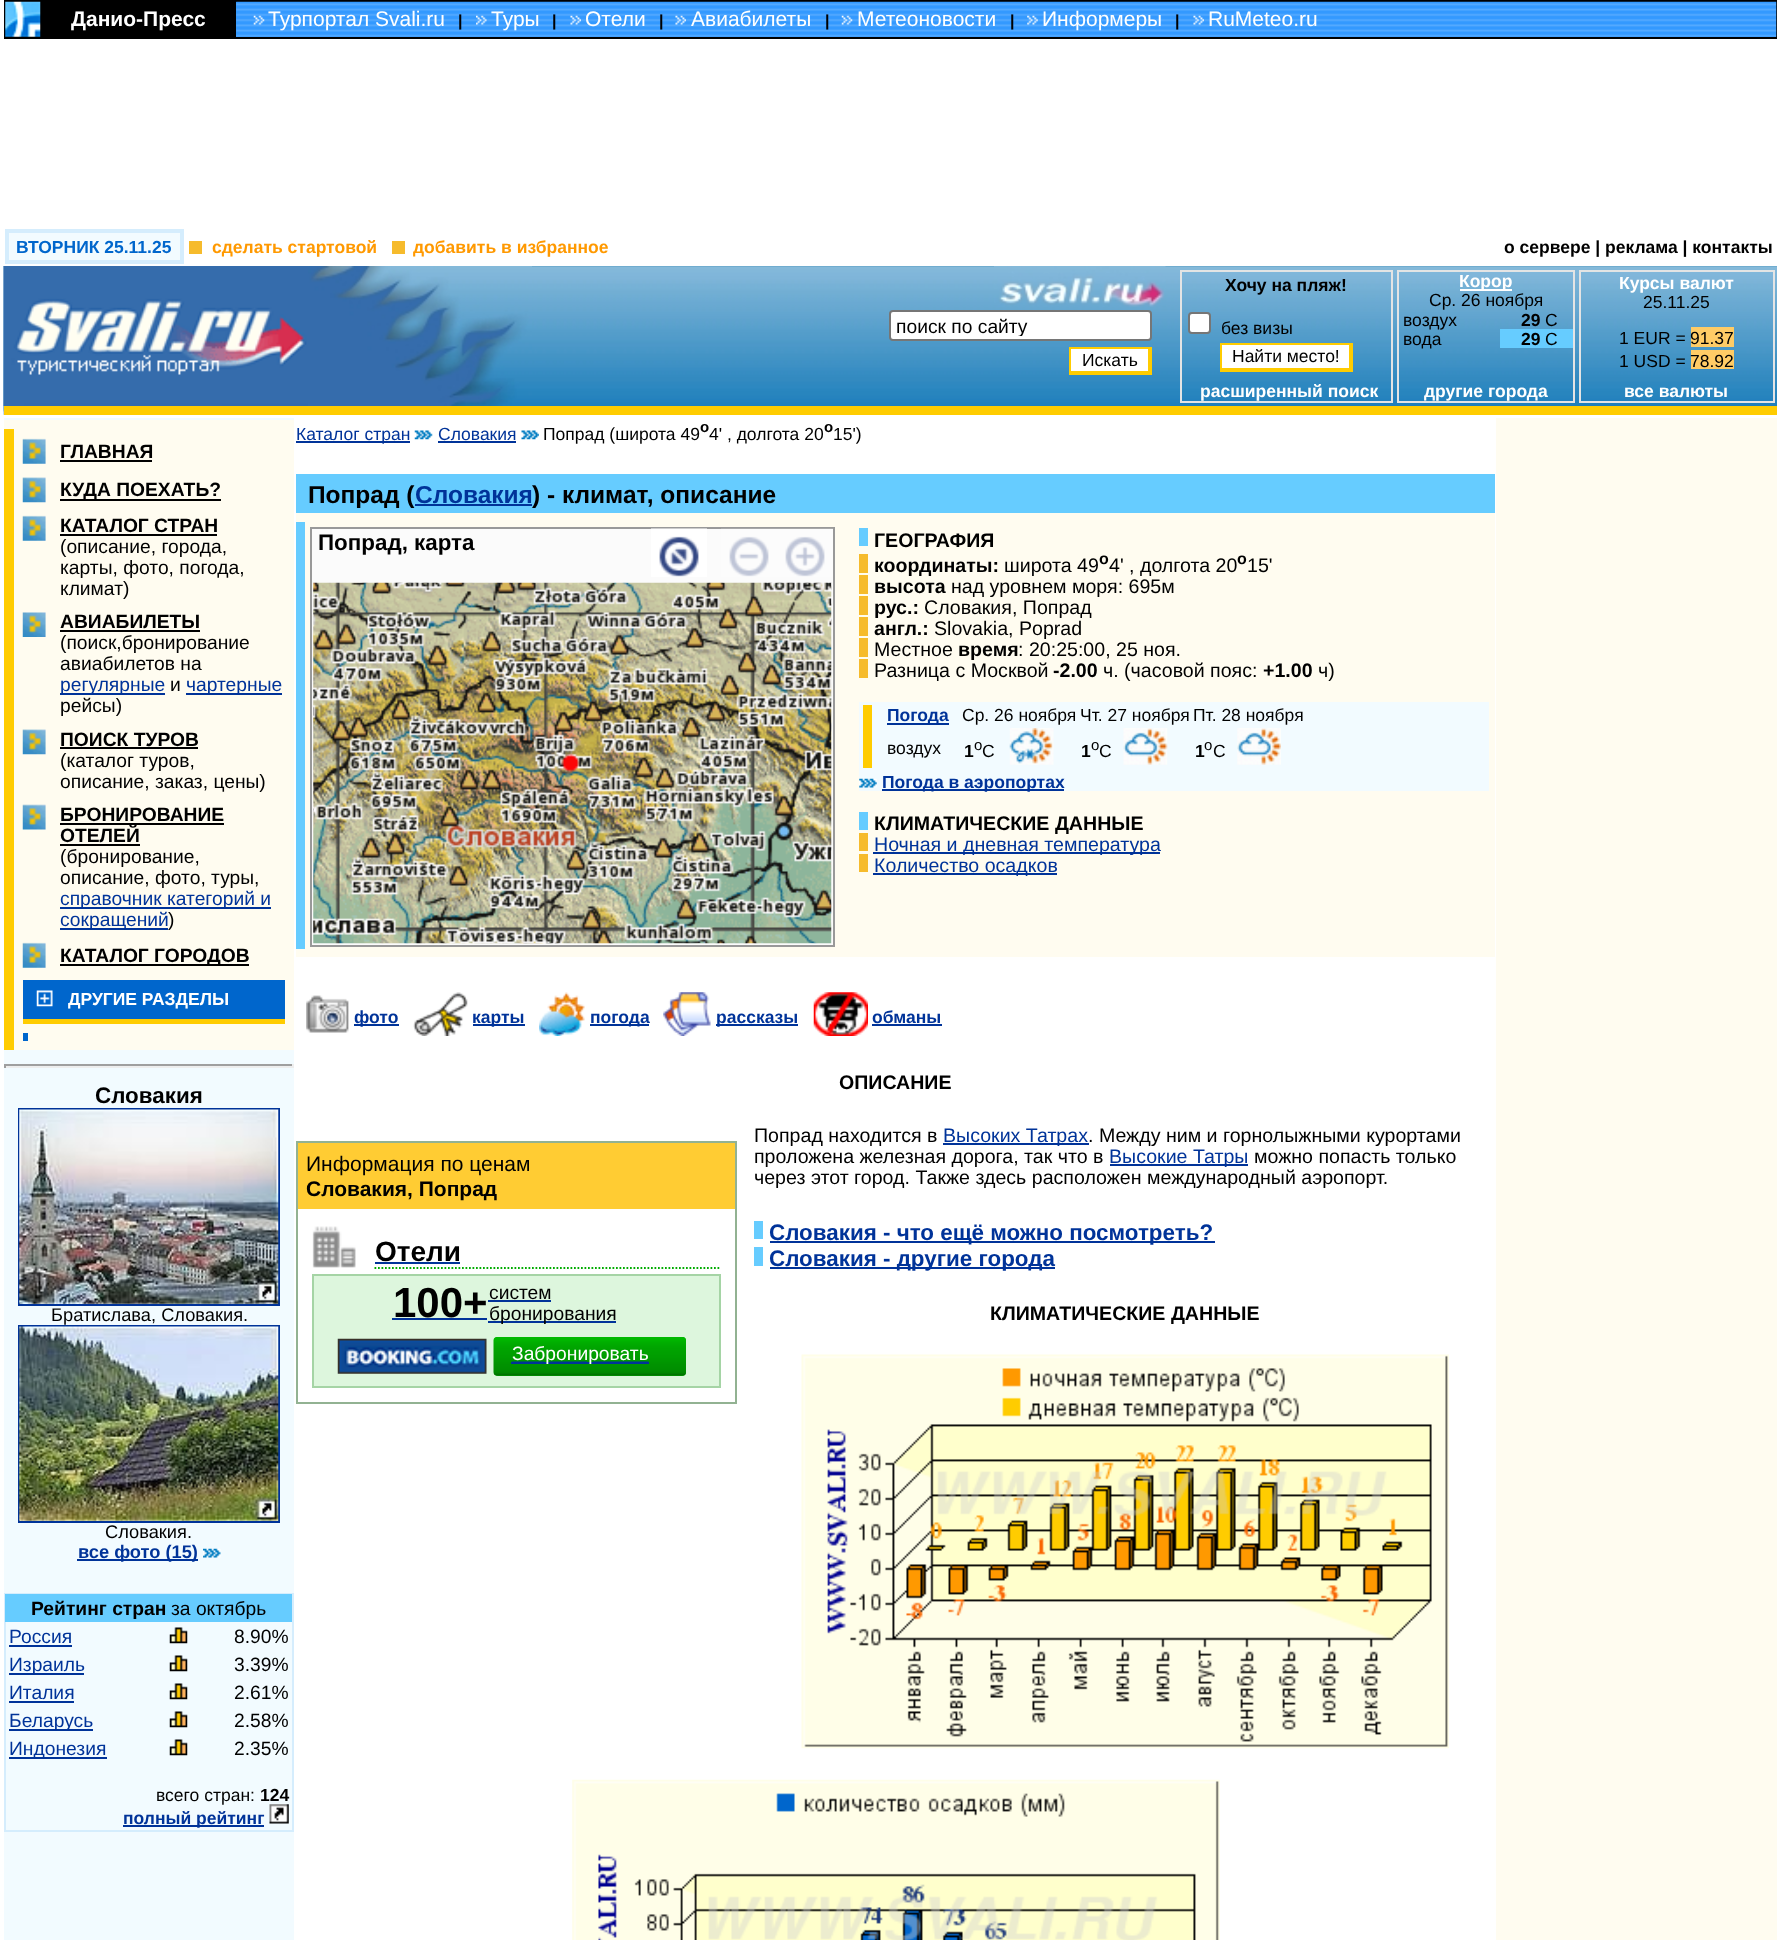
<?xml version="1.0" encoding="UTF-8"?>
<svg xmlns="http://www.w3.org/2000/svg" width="1777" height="1940">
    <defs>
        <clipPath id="clip1"><rect x="896" y="315" width="249" height="21"/></clipPath>
    </defs>
    <rect width="100%" height="100%" fill="#FFFFFF"/>
    <rect x="4" y="0" width="1773" height="39" fill="#000000"/>
    <image x="5" y="1" width="36" height="36" href="img_01.png"/>
    <text x="71" y="26" font-family="Liberation Sans" font-size="21" font-weight="700" fill="#FFFFFF">Данио-Пресс</text>
    <rect x="236" y="2" width="1540" height="35" fill="#3399FF"/>
    <image x="236" y="1" width="1541" height="36" href="img_02.png"/>
    <image x="253" y="15" width="12" height="10" href="img_03.png"/>
    <text x="268" y="26" font-family="Liberation Sans" font-size="21" fill="#FFFFFF">Турпортал Svali.ru</text>
    <text x="458" y="26" font-family="Liberation Sans" font-size="16" font-weight="700" fill="#000000">|</text>
    <image x="476" y="15" width="11" height="10" href="img_04.png"/>
    <text x="491" y="26" font-family="Liberation Sans" font-size="21" fill="#FFFFFF">Туры</text>
    <text x="552" y="26" font-family="Liberation Sans" font-size="16" font-weight="700" fill="#000000">|</text>
    <image x="570" y="15" width="11" height="10" href="img_05.png"/>
    <text x="585" y="26" font-family="Liberation Sans" font-size="21" fill="#FFFFFF">Отели</text>
    <text x="659" y="26" font-family="Liberation Sans" font-size="16" font-weight="700" fill="#000000">|</text>
    <image x="675" y="15" width="11" height="10" href="img_05.png"/>
    <text x="691" y="26" font-family="Liberation Sans" font-size="21" fill="#FFFFFF">Авиабилеты</text>
    <text x="825" y="26" font-family="Liberation Sans" font-size="16" font-weight="700" fill="#000000">|</text>
    <image x="841" y="15" width="12" height="10" href="img_03.png"/>
    <text x="857" y="26" font-family="Liberation Sans" font-size="21" fill="#FFFFFF">Метеоновости</text>
    <text x="1010" y="26" font-family="Liberation Sans" font-size="16" font-weight="700" fill="#000000">|</text>
    <image x="1027" y="15" width="11" height="10" href="img_06.png"/>
    <text x="1042" y="26" font-family="Liberation Sans" font-size="21" fill="#FFFFFF">Информеры</text>
    <text x="1175" y="26" font-family="Liberation Sans" font-size="16" font-weight="700" fill="#000000">|</text>
    <image x="1193" y="15" width="11" height="10" href="img_05.png"/>
    <text x="1208" y="26" font-family="Liberation Sans" font-size="21" fill="#FFFFFF">RuMeteo.ru</text>
    <rect x="7" y="231" width="175" height="31" fill="#F2FBFF" stroke="#D5EDFD" stroke-width="4"/>
    <text x="16" y="253" font-family="Liberation Sans" font-size="17.5" font-weight="700" fill="#0066CC">ВТОРНИК 25.11.25</text>
    <text x="212" y="253" font-family="Liberation Sans" font-size="17.5" font-weight="700" fill="#FF9900">сделать стартовой</text>
    <rect x="189" y="241" width="13" height="13" fill="#F6BB2C"/>
    <text x="413" y="253" font-family="Liberation Sans" font-size="17.5" font-weight="700" fill="#FF9900">добавить в избранное</text>
    <rect x="392" y="241" width="13" height="13" fill="#F6BB2C"/>
    <text x="1504" y="253" font-family="Liberation Sans" font-size="17.5" font-weight="700" fill="#000000">о сервере | реклама | контакты</text>
    <image x="3" y="266" width="1774" height="149" href="img_07.png"/>
    <image x="3" y="266" width="305" height="140" href="img_08.png"/>
    <image x="308" y="266" width="224" height="140" href="img_09.png"/>
    <image x="994" y="266" width="172" height="41" href="img_10.png"/>
    <rect x="890" y="311" width="261" height="29" rx="3" fill="#FFFFFF" stroke="#767676" stroke-width="2"/>
    <g clip-path="url(#clip1)">
        <text x="896" y="333" font-family="Liberation Sans" font-size="19.25" fill="#000000">поиск по сайту</text>
    </g>
    <rect x="1071" y="349" width="77" height="22" fill="#FFFFFF"/>
    <rect x="1069" y="347" width="83" height="2" fill="#FFCC00"/>
    <rect x="1148" y="347" width="4" height="28" fill="#FFCC00"/>
    <rect x="1069" y="371" width="83" height="4" fill="#FFCC00"/>
    <rect x="1069" y="347" width="2" height="28" fill="#FFCC00"/>
    <text x="1082" y="366" font-family="Liberation Sans" font-size="17.5" fill="#000000">Искать</text>
    <rect x="1181" y="271" width="211" height="131" fill="none" stroke="#E4E4E4" stroke-width="2"/>
    <text x="1225" y="291" font-family="Liberation Sans" font-size="17.5" font-weight="700" fill="#000000">Хочу на пляж!</text>
    <rect x="1189" y="313" width="21" height="20" rx="3" fill="#FFFFFF" stroke="#767676" stroke-width="2"/>
    <text x="1221" y="334" font-family="Liberation Sans" font-size="17.5" fill="#000000">без визы</text>
    <rect x="1222" y="345" width="127" height="23" fill="#FFFFFF"/>
    <rect x="1220" y="343" width="133" height="2" fill="#FFCC00"/>
    <rect x="1349" y="343" width="4" height="28" fill="#FFCC00"/>
    <rect x="1220" y="368" width="133" height="4" fill="#FFCC00"/>
    <rect x="1220" y="343" width="2" height="28" fill="#FFCC00"/>
    <text x="1232" y="362" font-family="Liberation Sans" font-size="17.5" fill="#000000">Найти место!</text>
    <text x="1200" y="397" font-family="Liberation Sans" font-size="17.5" font-weight="700" fill="#FFFFFF">расширенный поиск</text>
    <rect x="1398" y="271" width="176" height="131" fill="none" stroke="#E4E4E4" stroke-width="2"/>
    <rect x="1460" y="289" width="52" height="2" fill="#FFFFFF"/>
    <text x="1459" y="287" font-family="Liberation Sans" font-size="17.5" font-weight="700" fill="#FFFFFF">Корор</text>
    <text x="1429" y="306" font-family="Liberation Sans" font-size="17.5" fill="#000000">Ср. 26 ноября</text>
    <text x="1403" y="326" font-family="Liberation Sans" font-size="17.5" fill="#000000">воздух</text>
    <text x="1521" y="326" font-family="Liberation Sans" font-size="17.5" font-weight="700" fill="#000000">29</text>
    <text x="1545" y="326" font-family="Liberation Sans" font-size="17.5" fill="#000000">C</text>
    <text x="1403" y="345" font-family="Liberation Sans" font-size="17.5" fill="#000000">вода</text>
    <rect x="1500" y="329" width="73" height="19" fill="#66CCFF"/>
    <text x="1521" y="345" font-family="Liberation Sans" font-size="17.5" font-weight="700" fill="#000000">29</text>
    <text x="1545" y="345" font-family="Liberation Sans" font-size="17.5" fill="#000000">C</text>
    <text x="1424" y="397" font-family="Liberation Sans" font-size="17.5" font-weight="700" fill="#FFFFFF">другие города</text>
    <rect x="1580" y="271" width="194" height="131" fill="none" stroke="#E4E4E4" stroke-width="2"/>
    <text x="1619" y="289" font-family="Liberation Sans" font-size="17.5" font-weight="700" fill="#FFFFFF">Курсы валют</text>
    <text x="1643" y="308" font-family="Liberation Sans" font-size="17.5" fill="#000000">25.11.25</text>
    <text x="1619" y="344" font-family="Liberation Sans" font-size="17.5" fill="#000000">1 EUR =</text>
    <rect x="1691" y="327" width="43" height="20" fill="#FFCC66"/>
    <text x="1690" y="344" font-family="Liberation Sans" font-size="17.5" fill="#000000">91.37</text>
    <text x="1619" y="367" font-family="Liberation Sans" font-size="17.5" fill="#000000">1 USD =</text>
    <rect x="1691" y="350" width="43" height="19" fill="#FFCC66"/>
    <text x="1690" y="367" font-family="Liberation Sans" font-size="17.5" fill="#000000">78.92</text>
    <text x="1624" y="397" font-family="Liberation Sans" font-size="17.5" font-weight="700" fill="#FFFFFF">все валюты</text>
    <rect x="4" y="406" width="1773" height="9" fill="#FFCC00"/>
    <rect x="4" y="418" width="290" height="1522" fill="#F2FBFF"/>
    <rect x="4" y="420" width="290" height="9" fill="#FFFCF0"/>
    <rect x="4" y="429" width="10" height="621" fill="#FFCC00"/>
    <rect x="14" y="429" width="280" height="621" fill="#FFFCF0"/>
    <image x="22" y="438" width="24" height="26" href="img_11.png"/>
    <text x="60" y="458" font-family="Liberation Sans" font-size="19.25" font-weight="700" fill="#000000">ГЛАВНАЯ</text>
    <rect x="60" y="460" width="92" height="2" fill="#000000"/>
    <image x="22" y="477" width="24" height="26" href="img_12.png"/>
    <rect x="60" y="499" width="161" height="2" fill="#000000"/>
    <text x="60" y="496" font-family="Liberation Sans" font-size="19.25" font-weight="700" fill="#000000">КУДА ПОЕХАТЬ?</text>
    <image x="22" y="515" width="24" height="26" href="img_11.png"/>
    <text x="60" y="532" font-family="Liberation Sans" font-size="19.25" font-weight="700" fill="#000000">КАТАЛОГ СТРАН</text>
    <rect x="60" y="534" width="157" height="2" fill="#000000"/>
    <text font-family="Liberation Sans" font-size="19.25" fill="#000000">
        <tspan x="60" y="553">(описание, города,</tspan>
        <tspan x="60" y="574">карты, фото, погода,</tspan>
        <tspan x="60" y="595">климат)</tspan>
    </text>
    <image x="22" y="612" width="24" height="25" href="img_13.png"/>
    <text x="60" y="628" font-family="Liberation Sans" font-size="19.25" font-weight="700" fill="#000000">АВИАБИЛЕТЫ</text>
    <rect x="60" y="630" width="140" height="2" fill="#000000"/>
    <text font-family="Liberation Sans" font-size="19.25" fill="#000000">
        <tspan x="60" y="649">(поиск,бронирование</tspan>
        <tspan x="60" y="670">авиабилетов на</tspan>
    </text>
    <rect x="60" y="693" width="105" height="2" fill="#003399"/>
    <text x="60" y="691" font-family="Liberation Sans" font-size="19.25" fill="#003399">регулярные</text>
    <text x="170" y="691" font-family="Liberation Sans" font-size="19.25" fill="#000000">и</text>
    <rect x="186" y="693" width="96" height="2" fill="#003399"/>
    <text x="186" y="691" font-family="Liberation Sans" font-size="19.25" fill="#003399">чартерные</text>
    <text x="60" y="712" font-family="Liberation Sans" font-size="19.25" fill="#000000">рейсы)</text>
    <image x="22" y="729" width="24" height="26" href="img_12.png"/>
    <text x="60" y="746" font-family="Liberation Sans" font-size="19.25" font-weight="700" fill="#000000">ПОИСК ТУРОВ</text>
    <rect x="60" y="747" width="138" height="2" fill="#000000"/>
    <text font-family="Liberation Sans" font-size="19.25" fill="#000000">
        <tspan x="60" y="767">(каталог туров,</tspan>
        <tspan x="60" y="788">описание, заказ, цены)</tspan>
    </text>
    <image x="22" y="804" width="24" height="26" href="img_14.png"/>
    <text x="60" y="821" font-family="Liberation Sans" font-size="19.25" font-weight="700" fill="#000000">БРОНИРОВАНИЕ</text>
    <rect x="60" y="823" width="164" height="2" fill="#000000"/>
    <text x="60" y="842" font-family="Liberation Sans" font-size="19.25" font-weight="700" fill="#000000">ОТЕЛЕЙ</text>
    <rect x="60" y="844" width="80" height="2" fill="#000000"/>
    <text font-family="Liberation Sans" font-size="19.25" fill="#000000">
        <tspan x="60" y="863">(бронирование,</tspan>
        <tspan x="60" y="884">описание, фото, туры,</tspan>
    </text>
    <rect x="60" y="907" width="211" height="2" fill="#003399"/>
    <text x="60" y="905" font-family="Liberation Sans" font-size="19.25" fill="#003399">справочник категорий и</text>
    <rect x="60" y="928" width="108" height="2" fill="#003399"/>
    <text x="60" y="926" font-family="Liberation Sans" font-size="19.25" fill="#003399">сокращений</text>
    <text x="168" y="926" font-family="Liberation Sans" font-size="19.25" fill="#000000">)</text>
    <image x="22" y="942" width="24" height="26" href="img_11.png"/>
    <rect x="60" y="964" width="189" height="2" fill="#000000"/>
    <text x="60" y="962" font-family="Liberation Sans" font-size="19.25" font-weight="700" fill="#000000">КАТАЛОГ ГОРОДОВ</text>
    <rect x="23" y="980" width="262" height="39" fill="#0066CC"/>
    <image x="36" y="990" width="17" height="17" href="img_15.png"/>
    <text x="68" y="1005" font-family="Liberation Sans" font-size="17.5" font-weight="700" fill="#FFFFFF">ДРУГИЕ РАЗДЕЛЫ</text>
    <rect x="23" y="1019" width="262" height="5" fill="#FFCC00"/>
    <rect x="23" y="1033" width="5" height="8" fill="#0066CC"/>
    <rect x="4" y="1064" width="290" height="2" fill="#9F9F9F"/>
    <rect x="292" y="1064" width="2" height="4" fill="#EEEEEE"/>
    <rect x="4" y="1066" width="290" height="2" fill="#EEEEEE"/>
    <rect x="4" y="1064" width="2" height="4" fill="#9F9F9F"/>
    <text x="95" y="1103" font-family="Liberation Sans" font-size="22.4" font-weight="700" fill="#000000">Словакия</text>
    <rect x="19" y="1109" width="260" height="196" fill="none" stroke="#003399" stroke-width="2"/>
    <image x="19" y="1109" width="260" height="195" href="img_16.png"/>
    <text x="51" y="1321" font-family="Liberation Sans" font-size="18.25" fill="#000000">Братислава, Словакия.</text>
    <rect x="19" y="1326" width="260" height="196" fill="none" stroke="#003399" stroke-width="2"/>
    <image x="19" y="1326" width="260" height="195" href="img_17.png"/>
    <text x="105" y="1538" font-family="Liberation Sans" font-size="18.25" fill="#000000">Словакия.</text>
    <rect x="77" y="1559" width="121" height="2" fill="#003399"/>
    <text x="78" y="1558" font-family="Liberation Sans" font-size="18.25" font-weight="700" fill="#003399">все фото (15)</text>
    <image x="203" y="1548" width="18" height="10" href="img_18.png"/>
    <rect x="5" y="1594" width="288" height="237" fill="none" stroke="#D5EDFD" stroke-width="2"/>
    <rect x="5" y="1594" width="287" height="28" fill="#66CCFF"/>
    <text x="31" y="1615" font-family="Liberation Sans" font-size="19.25" font-weight="700" fill="#000000">Рейтинг стран</text>
    <text x="171" y="1615" font-family="Liberation Sans" font-size="19.25" fill="#000000">за октябрь</text>
    <text x="9" y="1643" font-family="Liberation Sans" font-size="19.25" fill="#003399">Россия</text>
    <rect x="9" y="1645" width="63" height="2" fill="#003399"/>
    <image x="169" y="1627" width="19" height="17" href="img_19.png"/>
    <text x="234" y="1643" font-family="Liberation Sans" font-size="19.25" fill="#000000">8.90%</text>
    <rect x="9" y="1673" width="75" height="2" fill="#003399"/>
    <text x="9" y="1671" font-family="Liberation Sans" font-size="19.25" fill="#003399">Израиль</text>
    <image x="169" y="1655" width="19" height="17" href="img_19.png"/>
    <text x="234" y="1671" font-family="Liberation Sans" font-size="19.25" fill="#000000">3.39%</text>
    <text x="9" y="1699" font-family="Liberation Sans" font-size="19.25" fill="#003399">Италия</text>
    <rect x="9" y="1701" width="65" height="2" fill="#003399"/>
    <image x="169" y="1683" width="19" height="17" href="img_19.png"/>
    <text x="234" y="1699" font-family="Liberation Sans" font-size="19.25" fill="#000000">2.61%</text>
    <rect x="9" y="1729" width="84" height="2" fill="#003399"/>
    <text x="9" y="1727" font-family="Liberation Sans" font-size="19.25" fill="#003399">Беларусь</text>
    <image x="169" y="1711" width="19" height="17" href="img_19.png"/>
    <text x="234" y="1727" font-family="Liberation Sans" font-size="19.25" fill="#000000">2.58%</text>
    <rect x="9" y="1757" width="98" height="2" fill="#003399"/>
    <text x="9" y="1755" font-family="Liberation Sans" font-size="19.25" fill="#003399">Индонезия</text>
    <image x="169" y="1739" width="19" height="17" href="img_19.png"/>
    <text x="234" y="1755" font-family="Liberation Sans" font-size="19.25" fill="#000000">2.35%</text>
    <text x="156" y="1801" font-family="Liberation Sans" font-size="17.5" fill="#000000">всего стран:</text>
    <text x="260" y="1801" font-family="Liberation Sans" font-size="17.5" font-weight="700" fill="#000000">124</text>
    <rect x="123" y="1825" width="141" height="2" fill="#003399"/>
    <text x="123" y="1824" font-family="Liberation Sans" font-size="17.5" font-weight="700" fill="#003399">полный рейтинг</text>
    <image x="269" y="1804" width="20" height="20" href="img_20.png"/>
    <rect x="296" y="441" width="114" height="2" fill="#003399"/>
    <text x="296" y="440" font-family="Liberation Sans" font-size="17.5" fill="#003399">Каталог стран</text>
    <image x="414" y="430" width="19" height="10" href="img_21.png"/>
    <text x="438" y="440" font-family="Liberation Sans" font-size="17.5" fill="#003399">Словакия</text>
    <rect x="438" y="441" width="78" height="2" fill="#003399"/>
    <image x="521" y="430" width="18" height="10" href="img_22.png"/>
    <text x="543" y="440" font-family="Liberation Sans" font-size="17.5" fill="#000000">Попрад (широта 49</text>
    <text x="700" y="432" font-family="Liberation Sans" font-size="15" font-weight="700" fill="#000000">o</text>
    <text x="709" y="440" font-family="Liberation Sans" font-size="17.5" fill="#000000">4' , долгота 20</text>
    <text x="824" y="432" font-family="Liberation Sans" font-size="15" font-weight="700" fill="#000000">o</text>
    <text x="833" y="440" font-family="Liberation Sans" font-size="17.5" fill="#000000">15')</text>
    <rect x="296" y="513" width="1199" height="444" fill="#FFFCF0"/>
    <rect x="296" y="474" width="1199" height="39" fill="#66CCFF"/>
    <text x="308" y="503" font-family="Liberation Sans" font-size="24.5" font-weight="700" fill="#000000">Попрад (</text>
    <text x="415" y="503" font-family="Liberation Sans" font-size="24.5" font-weight="700" fill="#003399">Словакия</text>
    <rect x="415" y="504" width="117" height="2" fill="#003399"/>
    <text x="532" y="503" font-family="Liberation Sans" font-size="24.5" font-weight="700" fill="#000000">) - климат, описание</text>
    <rect x="296" y="522" width="9" height="427" fill="#66CCFF"/>
    <rect x="311" y="528" width="523" height="418" fill="#FBFBFB" stroke="#999999" stroke-width="2"/>
    <text x="318" y="550" font-family="Liberation Sans" font-size="22.4" font-weight="700" fill="#000000">Попрад, карта</text>
    <image x="651" y="528" width="56" height="49" href="img_23.png"/>
    <image x="721" y="528" width="56" height="49" href="img_24.png"/>
    <image x="777" y="528" width="56" height="49" href="img_25.png"/>
    <image x="313" y="582" width="519" height="362" href="img_26.png"/>
    <rect x="859" y="528" width="9" height="18" fill="#66CCFF"/>
    <text x="874" y="547" font-family="Liberation Sans" font-size="19.6" font-weight="700" fill="#000000">ГЕОГРАФИЯ</text>
    <rect x="859" y="554" width="9" height="19" fill="#F6BB2C"/>
    <text x="874" y="572" font-family="Liberation Sans" font-size="19.6" font-weight="700" fill="#000000">координаты:</text>
    <text x="1004" y="572" font-family="Liberation Sans" font-size="19.6" fill="#000000">широта 49</text>
    <text x="1099" y="564" font-family="Liberation Sans" font-size="16" font-weight="700" fill="#000000">o</text>
    <text x="1109" y="572" font-family="Liberation Sans" font-size="19.6" fill="#000000">4' , долгота 20</text>
    <text x="1237" y="564" font-family="Liberation Sans" font-size="16" font-weight="700" fill="#000000">o</text>
    <text x="1247" y="572" font-family="Liberation Sans" font-size="19.6" fill="#000000">15'</text>
    <rect x="859" y="575" width="9" height="19" fill="#F6BB2C"/>
    <text x="874" y="593" font-family="Liberation Sans" font-size="19.6" font-weight="700" fill="#000000">высота</text>
    <text x="951" y="593" font-family="Liberation Sans" font-size="19.6" fill="#000000">над уровнем моря: 695м</text>
    <rect x="859" y="596" width="9" height="19" fill="#F6BB2C"/>
    <text x="874" y="614" font-family="Liberation Sans" font-size="19.6" font-weight="700" fill="#000000">рус.:</text>
    <text x="924" y="614" font-family="Liberation Sans" font-size="19.6" fill="#000000">Словакия, Попрад</text>
    <rect x="859" y="617" width="9" height="19" fill="#F6BB2C"/>
    <text x="874" y="635" font-family="Liberation Sans" font-size="19.6" font-weight="700" fill="#000000">англ.:</text>
    <text x="934" y="635" font-family="Liberation Sans" font-size="19.6" fill="#000000">Slovakia, Poprad</text>
    <rect x="859" y="638" width="9" height="19" fill="#F6BB2C"/>
    <text x="874" y="656" font-family="Liberation Sans" font-size="19.6" fill="#000000">Местное</text>
    <text x="958" y="656" font-family="Liberation Sans" font-size="19.6" font-weight="700" fill="#000000">время</text>
    <text x="1018" y="656" font-family="Liberation Sans" font-size="19.6" fill="#000000">: 20:25:00, 25 ноя.</text>
    <rect x="859" y="659" width="9" height="19" fill="#F6BB2C"/>
    <text x="874" y="677" font-family="Liberation Sans" font-size="19.6" fill="#000000">Разница с Москвой</text>
    <text x="1053" y="677" font-family="Liberation Sans" font-size="19.6" font-weight="700" fill="#000000">-2.00</text>
    <text x="1103" y="677" font-family="Liberation Sans" font-size="19.6" fill="#000000">ч. (часовой пояс:</text>
    <text x="1263" y="677" font-family="Liberation Sans" font-size="19.6" font-weight="700" fill="#000000">+1.00</text>
    <text x="1318" y="677" font-family="Liberation Sans" font-size="19.6" fill="#000000">ч)</text>
    <rect x="859" y="702" width="630" height="89" fill="#F2FBFF"/>
    <rect x="863" y="705" width="9" height="63" fill="#FFCC00"/>
    <rect x="887" y="723" width="62" height="2" fill="#003399"/>
    <text x="887" y="721" font-family="Liberation Sans" font-size="17.5" font-weight="700" fill="#003399">Погода</text>
    <text x="962" y="721" font-family="Liberation Sans" font-size="17.5" fill="#000000">Ср. 26 ноября</text>
    <text x="1080" y="721" font-family="Liberation Sans" font-size="17.5" fill="#000000">Чт. 27 ноября</text>
    <text x="1193" y="721" font-family="Liberation Sans" font-size="17.5" fill="#000000">Пт. 28 ноября</text>
    <text x="887" y="754" font-family="Liberation Sans" font-size="17.5" fill="#000000">воздух</text>
    <text x="964" y="757" font-family="Liberation Sans" font-size="17.5" font-weight="700" fill="#000000">1</text>
    <text x="974" y="750" font-family="Liberation Sans" font-size="15" fill="#000000">o</text>
    <text x="982" y="757" font-family="Liberation Sans" font-size="17.5" fill="#000000">C</text>
    <image x="1009" y="728" width="45" height="37" href="img_27.png"/>
    <text x="1081" y="757" font-family="Liberation Sans" font-size="17.5" font-weight="700" fill="#000000">1</text>
    <text x="1091" y="750" font-family="Liberation Sans" font-size="15" fill="#000000">o</text>
    <text x="1099" y="757" font-family="Liberation Sans" font-size="17.5" fill="#000000">C</text>
    <image x="1123" y="728" width="45" height="37" href="img_28.png"/>
    <text x="1195" y="757" font-family="Liberation Sans" font-size="17.5" font-weight="700" fill="#000000">1</text>
    <text x="1204" y="750" font-family="Liberation Sans" font-size="15" fill="#000000">o</text>
    <text x="1213" y="757" font-family="Liberation Sans" font-size="17.5" fill="#000000">C</text>
    <image x="1237" y="728" width="44" height="37" href="img_29.png"/>
    <image x="859" y="778" width="18" height="10" href="img_30.png"/>
    <rect x="882" y="789" width="182" height="2" fill="#003399"/>
    <text x="882" y="788" font-family="Liberation Sans" font-size="17.5" font-weight="700" fill="#003399">Погода в аэропортах</text>
    <rect x="859" y="812" width="9" height="18" fill="#66CCFF"/>
    <text x="874" y="830" font-family="Liberation Sans" font-size="19.6" font-weight="700" fill="#000000">КЛИМАТИЧЕСКИЕ ДАННЫЕ</text>
    <rect x="859" y="833" width="9" height="18" fill="#F6BB2C"/>
    <rect x="873" y="852" width="287" height="2" fill="#003399"/>
    <text x="874" y="851" font-family="Liberation Sans" font-size="19.6" fill="#003399">Ночная и дневная температура</text>
    <rect x="859" y="854" width="9" height="18" fill="#F6BB2C"/>
    <rect x="873" y="873" width="184" height="2" fill="#003399"/>
    <text x="874" y="872" font-family="Liberation Sans" font-size="19.6" fill="#003399">Количество осадков</text>
    <image x="306" y="995" width="43" height="38" href="img_31.png"/>
    <rect x="354" y="1024" width="45" height="2" fill="#003399"/>
    <text x="354" y="1023" font-family="Liberation Sans" font-size="17.5" font-weight="700" fill="#003399">фото</text>
    <image x="413" y="992" width="55" height="44" href="img_32.png"/>
    <rect x="473" y="1024" width="52" height="2" fill="#003399"/>
    <text x="472" y="1023" font-family="Liberation Sans" font-size="17.5" font-weight="700" fill="#003399">карты</text>
    <image x="539" y="992" width="46" height="44" href="img_33.png"/>
    <rect x="590" y="1024" width="59" height="2" fill="#003399"/>
    <text x="590" y="1023" font-family="Liberation Sans" font-size="17.5" font-weight="700" fill="#003399">погода</text>
    <image x="663" y="992" width="48" height="44" href="img_34.png"/>
    <rect x="716" y="1024" width="82" height="2" fill="#003399"/>
    <text x="716" y="1023" font-family="Liberation Sans" font-size="17.5" font-weight="700" fill="#003399">рассказы</text>
    <image x="813" y="992" width="55" height="44" href="img_35.png"/>
    <text x="872" y="1023" font-family="Liberation Sans" font-size="17.5" font-weight="700" fill="#003399">обманы</text>
    <rect x="872" y="1024" width="70" height="2" fill="#003399"/>
    <text x="839" y="1089" font-family="Liberation Sans" font-size="19.6" font-weight="700" fill="#000000">ОПИСАНИЕ</text>
    <text x="754" y="1142" font-family="Liberation Sans" font-size="19.6" fill="#000000">Попрад находится в</text>
    <rect x="943" y="1143" width="146" height="2" fill="#003399"/>
    <text x="943" y="1142" font-family="Liberation Sans" font-size="19.6" fill="#003399">Высоких Татрах</text>
    <text x="1088" y="1142" font-family="Liberation Sans" font-size="19.6" fill="#000000">. Между ним и горнолыжными курортами</text>
    <rect x="297" y="1142" width="439" height="261" fill="none" stroke="#92B292" stroke-width="2"/>
    <rect x="298" y="1143" width="437" height="66" fill="#FFCC33"/>
    <text x="306" y="1171" font-family="Liberation Sans" font-size="21" fill="#000000">Информация по ценам</text>
    <text x="306" y="1196" font-family="Liberation Sans" font-size="21" font-weight="700" fill="#000000">Словакия, Попрад</text>
    <image x="312" y="1226" width="44" height="42" href="img_36.png"/>
    <path d="M 374.5 1268 H 721" fill="none" stroke="#00AC00" stroke-width="1.8" stroke-dasharray="1.75 1.75"/>
    <text x="375" y="1261" font-family="Liberation Sans" font-size="28" font-weight="700" fill="#000000">Отели</text>
    <rect x="375" y="1262" width="85" height="2" fill="#003399"/>
    <rect x="313" y="1275" width="407" height="112" fill="#DDF6DD" stroke="#A5D4A5" stroke-width="2"/>
    <text x="393" y="1317" font-family="Liberation Sans" font-size="42" font-weight="700" fill="#000000">100+</text>
    <rect x="392" y="1318" width="95" height="2" fill="#003399"/>
    <text x="489" y="1299" font-family="Liberation Sans" font-size="19.25" fill="#000000">систем</text>
    <rect x="488" y="1300" width="63" height="2" fill="#003399"/>
    <rect x="488" y="1321" width="128" height="2" fill="#003399"/>
    <text x="489" y="1320" font-family="Liberation Sans" font-size="19.25" fill="#000000">бронирования</text>
    <image x="337" y="1338" width="150" height="36" href="img_37.png"/>
    <rect x="494" y="1337" width="192" height="39" rx="4" fill="#009900"/>
    <image x="493" y="1337" width="193" height="39" href="img_38.png"/>
    <rect x="511" y="1362" width="138" height="2" fill="#003399"/>
    <text x="512" y="1360" font-family="Liberation Sans" font-size="19.25" fill="#FFFFFF">Забронировать</text>
    <text x="754" y="1163" font-family="Liberation Sans" font-size="19.6" fill="#000000">проложена железная дорога, так что в</text>
    <rect x="1110" y="1164" width="138" height="2" fill="#003399"/>
    <text x="1109" y="1163" font-family="Liberation Sans" font-size="19.6" fill="#003399">Высокие Татры</text>
    <text x="1254" y="1163" font-family="Liberation Sans" font-size="19.6" fill="#000000">можно попасть только</text>
    <text x="754" y="1184" font-family="Liberation Sans" font-size="19.6" fill="#000000">через этот город. Также здесь расположен международный аэропорт.</text>
    <rect x="770" y="1241" width="445" height="2" fill="#003399"/>
    <text x="769" y="1240" font-family="Liberation Sans" font-size="22.4" font-weight="700" fill="#003399">Словакия - что ещё можно посмотреть?</text>
    <rect x="754" y="1221" width="9" height="18" fill="#66CCFF"/>
    <rect x="770" y="1267" width="285" height="2" fill="#003399"/>
    <text x="769" y="1266" font-family="Liberation Sans" font-size="22.4" font-weight="700" fill="#003399">Словакия - другие города</text>
    <rect x="754" y="1247" width="9" height="19" fill="#66CCFF"/>
    <text x="990" y="1320" font-family="Liberation Sans" font-size="19.6" font-weight="700" fill="#000000">КЛИМАТИЧЕСКИЕ ДАННЫЕ</text>
    <image x="801" y="1354" width="648" height="395" href="img_39.png"/>
    <image x="572" y="1779" width="648" height="161" href="img_40.png"/>
    <rect x="1496" y="418" width="281" height="1522" fill="#FFFCF0"/>
</svg>
